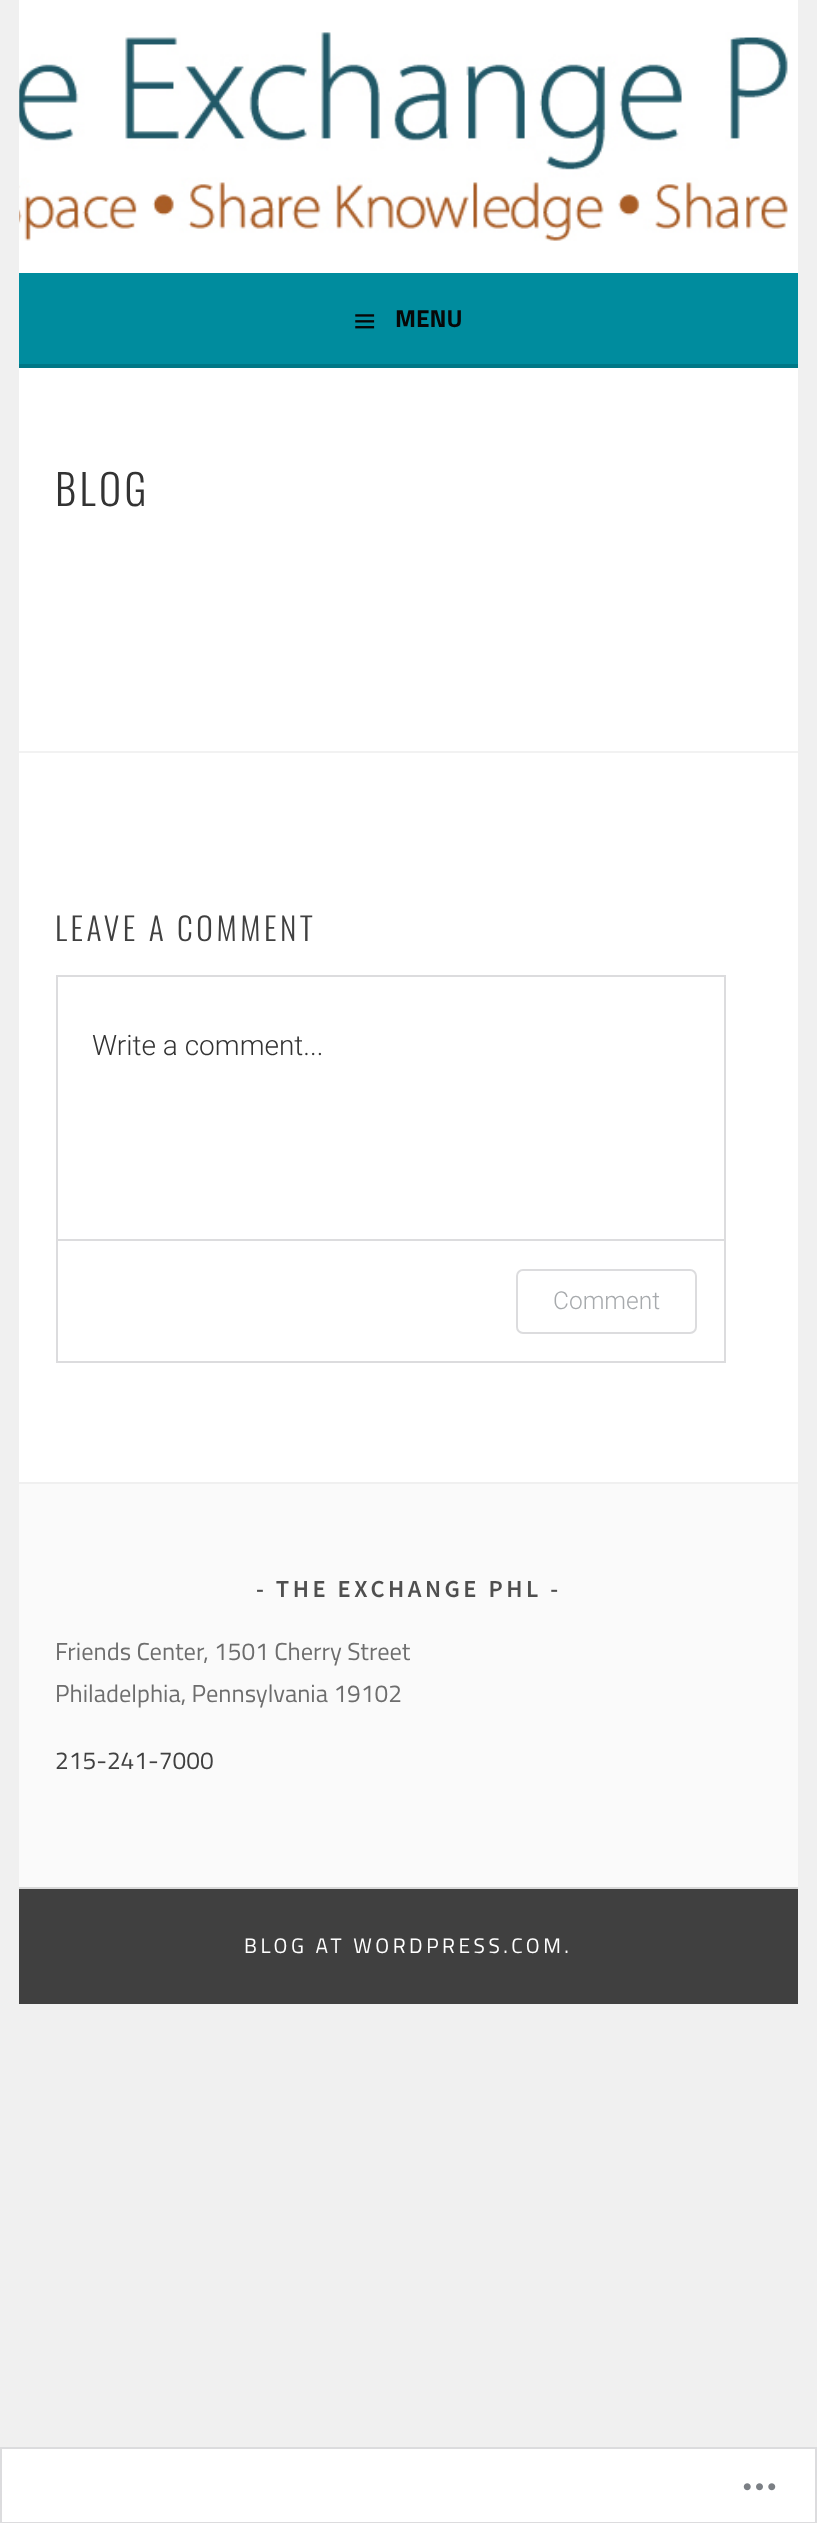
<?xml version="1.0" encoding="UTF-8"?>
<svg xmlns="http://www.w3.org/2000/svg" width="817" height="2523">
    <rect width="100%" height="100%" fill="#F0F0F0"/>
    <rect x="19" y="0" width="779" height="273" fill="#FFFFFF"/>
    <image x="19" y="32" width="769" height="209" href="img_01.png"/>
    <rect x="19" y="273" width="779" height="91" fill="#008C9E"/>
    <rect x="19" y="364" width="779" height="4" fill="#007786"/>
    <image x="355" y="314" width="20" height="15" href="img_02.png"/>
    <text x="395" y="327" font-family="Titillium Web" font-size="24.5" font-weight="700" fill="#070707">MENU</text>
    <rect x="19" y="368" width="779" height="1114" fill="#FFFFFF"/>
    <text x="55" y="506" font-family="Oswald" font-size="42" font-weight="300" letter-spacing="3.5" fill="#333333">BLOG</text>
    <rect x="19" y="751" width="779" height="2" fill="#F2F2F2"/>
    <text x="55" y="941" font-family="Oswald" font-size="31.5" font-weight="300" letter-spacing="3.5" fill="#404040">LEAVE A COMMENT</text>
    <rect x="57" y="976" width="668" height="386" fill="none" stroke="#DCDCDE" stroke-width="2"/>
    <text x="92" y="1055" font-family="Roboto" font-size="28" font-weight="300" fill="#333333">Write a comment...</text>
    <rect x="58" y="1239" width="667" height="2" fill="#DCDCDE"/>
    <rect x="517" y="1270" width="179" height="63" rx="6" fill="none" stroke="#DCDCDE" stroke-width="2"/>
    <text x="553" y="1309" font-family="Roboto" font-size="24.5" font-weight="300" fill="#A7AAAD">Comment</text>
    <rect x="19" y="1484" width="779" height="403" fill="#FAFAFA"/>
    <text x="256" y="1597" font-family="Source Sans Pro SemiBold" font-size="24.5" font-weight="600" letter-spacing="3.5" fill="#4F4F4F">- THE EXCHANGE PHL -</text>
    <text font-family="Titillium Web" font-size="24.5" fill="#6D6D6D">
        <tspan x="55" y="1660">Friends Center, 1501 Cherry Street</tspan>
        <tspan x="55" y="1702">Philadelphia, Pennsylvania 19102</tspan>
    </text>
    <text x="55" y="1769" font-family="Titillium Web" font-size="24.5" fill="#404040">215-241-7000</text>
    <rect x="19" y="1889" width="779" height="115" fill="#404040"/>
    <rect x="19" y="1887" width="779" height="2" fill="#D9D9D9"/>
    <text x="244" y="1953" font-family="Titillium Web" font-size="21" letter-spacing="3.5" fill="#FFFFFF">BLOG AT WORDPRESS.COM.</text>
    <rect x="1" y="2448" width="815" height="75" fill="#FFFFFF" stroke="#DCDCDE" stroke-width="2"/>
    <image x="743" y="2483" width="33" height="8" href="img_03.png"/>
</svg>
